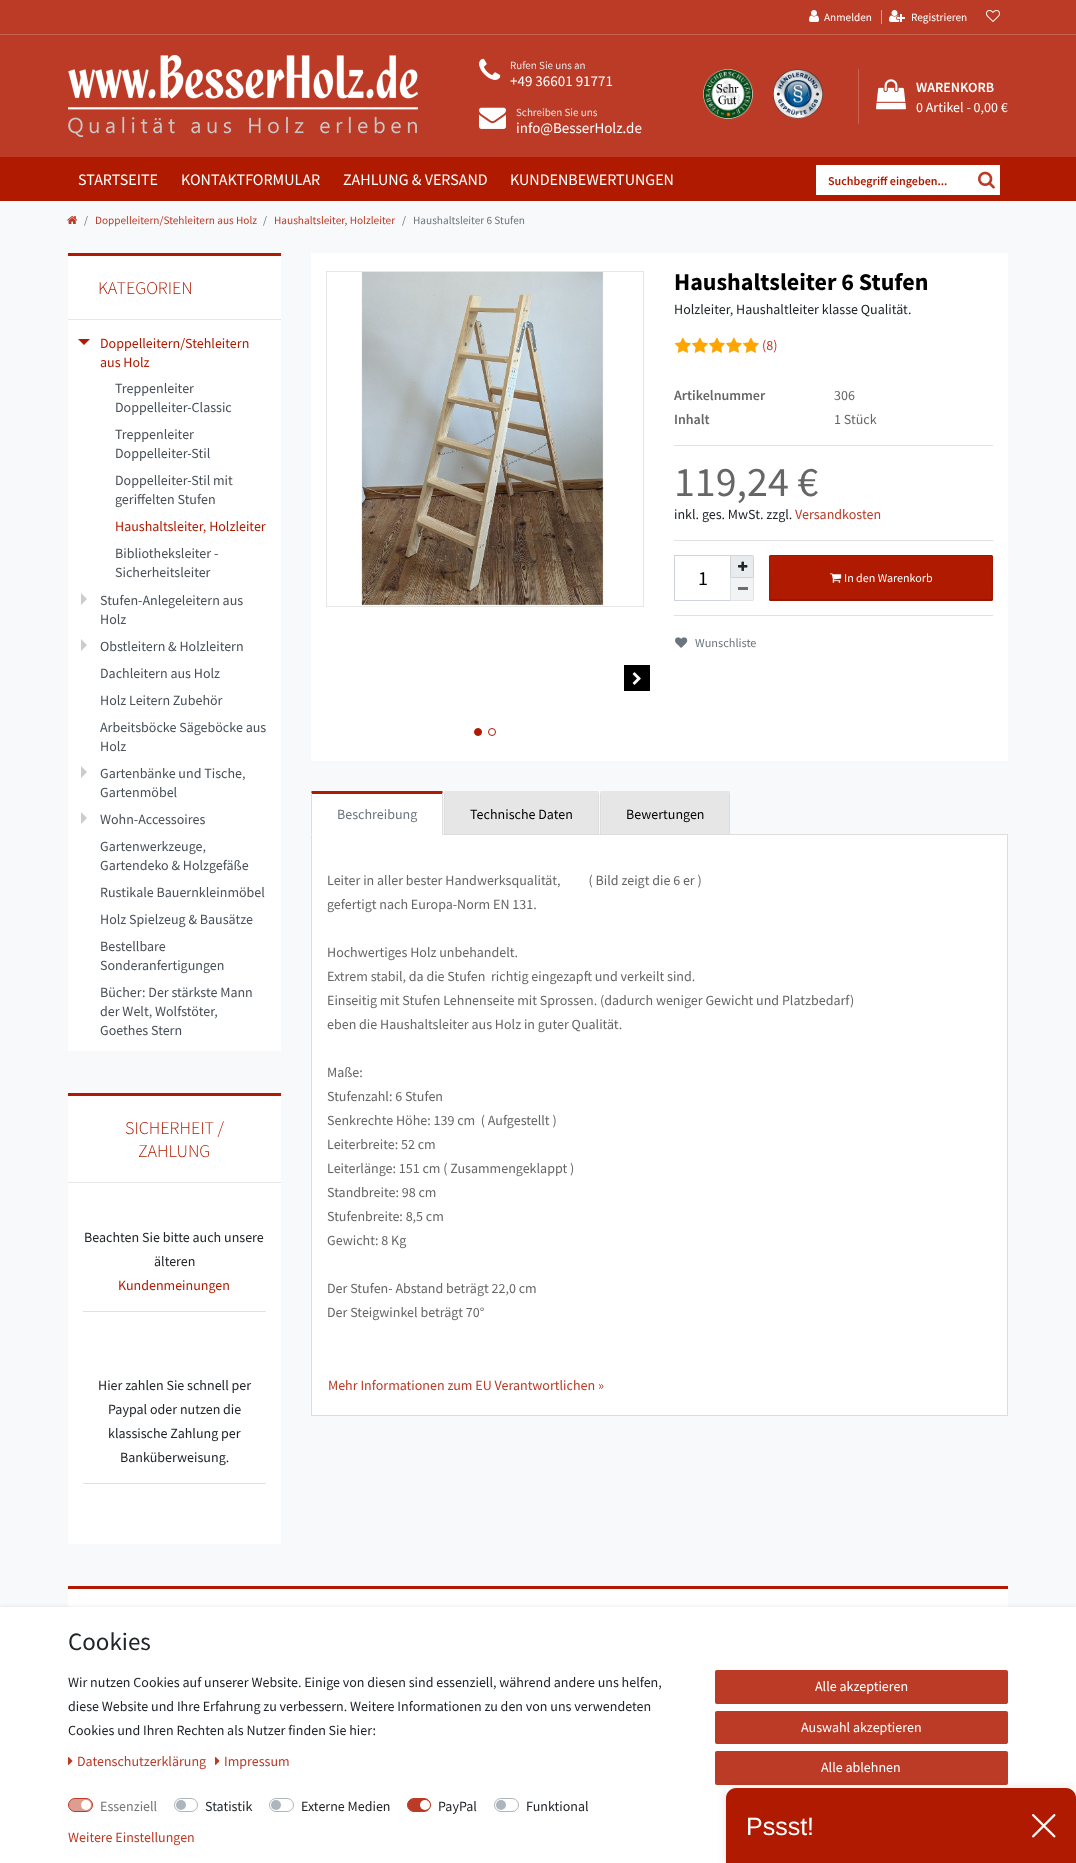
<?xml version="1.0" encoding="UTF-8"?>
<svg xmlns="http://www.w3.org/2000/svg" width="1076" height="1863">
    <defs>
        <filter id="blur1" x="-50%" y="-200%" width="200%" height="500%"><feGaussianBlur stdDeviation="2.5"/></filter>
        <clipPath id="clip1"><path d="M 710 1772 H 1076 V 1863 H 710 Z M 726 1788 H 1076 V 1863 H 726 Z" clip-rule="evenodd"/></clipPath>
        <filter id="blur2" x="-50%" y="-200%" width="200%" height="500%"><feGaussianBlur stdDeviation="5"/></filter>
    </defs>
    <rect width="100%" height="100%" fill="#F8F9FA"/>
    <rect x="0" y="0" width="1076" height="157" fill="#BB3B26"/>
    <image x="809" y="10" width="10" height="12" href="img_01.png"/>
    <text x="824" y="21" font-family="Source Sans Pro" font-size="11.25" fill="#FFFFFF">Anmelden</text>
    <rect x="881" y="10" width="1" height="14" fill="#B2B1A7"/>
    <image x="889" y="10" width="16" height="12" href="img_02.png"/>
    <text x="911" y="21" font-family="Source Sans Pro" font-size="11.25" fill="#FFFFFF">Registrieren</text>
    <image x="986" y="10" width="14" height="12" href="img_03.png"/>
    <rect x="0" y="34" width="1076" height="1" fill="#C96251"/>
    <image x="68" y="55" width="350" height="82" href="img_04.png"/>
    <image x="479" y="58" width="22" height="22" href="img_05.png"/>
    <text x="510" y="69" font-family="Source Sans Pro" font-size="11" fill="#E6E6E6">Rufen Sie uns an</text>
    <text x="510" y="86" font-family="Source Sans Pro" font-size="15" fill="#FFFFFF">+49 36601 91771</text>
    <image x="479" y="107" width="27" height="22" href="img_06.png"/>
    <text x="516" y="116" font-family="Source Sans Pro" font-size="11" fill="#E6E6E6">Schreiben Sie uns</text>
    <text x="516" y="133" font-family="Source Sans Pro" font-size="15" fill="#FFFFFF">info@BesserHolz.de</text>
    <image x="703" y="69" width="50" height="50" href="img_07.png"/>
    <image x="773" y="69" width="50" height="50" href="img_08.png"/>
    <rect x="858" y="69" width="1" height="55" fill="#C96251"/>
    <image x="876" y="79" width="30" height="31" href="img_09.png"/>
    <text x="916" y="92" font-family="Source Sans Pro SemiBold" font-size="14" font-weight="600" fill="#FFFFFF">WARENKORB</text>
    <text x="916" y="112" font-family="Source Sans Pro" font-size="14" fill="#FFFFFF">0 Artikel - 0,00 €</text>
    <rect x="0" y="157" width="1076" height="44" fill="#B01A01"/>
    <text x="78" y="185" font-family="Source Sans Pro" font-size="16" fill="#FFFFFF">STARTSEITE</text>
    <text x="181" y="185" font-family="Source Sans Pro" font-size="16" fill="#FFFFFF">KONTAKTFORMULAR</text>
    <text x="343" y="185" font-family="Source Sans Pro" font-size="16" fill="#FFFFFF">ZAHLUNG &amp; VERSAND</text>
    <text x="510" y="185" font-family="Source Sans Pro" font-size="16" fill="#FFFFFF">KUNDENBEWERTUNGEN</text>
    <rect x="816" y="165" width="184" height="30" fill="#FFFFFF"/>
    <text x="828" y="185" font-family="Source Sans Pro SemiBold" font-size="12" font-weight="600" fill="#B01A01">Suchbegriff eingeben...</text>
    <image x="978" y="171" width="17" height="18" href="img_10.png"/>
    <image x="67" y="216" width="11" height="8" href="img_11.png"/>
    <text x="84" y="224" font-family="Source Sans Pro" font-size="11.25" fill="#6C757D">/</text>
    <text x="95" y="224" font-family="Source Sans Pro" font-size="11.25" fill="#BB3B26">Doppelleitern/Stehleitern aus Holz</text>
    <text x="263" y="224" font-family="Source Sans Pro" font-size="11.25" fill="#6C757D">/</text>
    <text x="274" y="224" font-family="Source Sans Pro" font-size="11.25" fill="#BB3B26">Haushaltsleiter, Holzleiter</text>
    <text x="402" y="224" font-family="Source Sans Pro" font-size="11.25" fill="#6C757D">/</text>
    <text x="413" y="224" font-family="Source Sans Pro" font-size="11.25" fill="#6C757D">Haushaltsleiter 6 Stufen</text>
    <rect x="68" y="256" width="213" height="63" fill="#FFFFFF"/>
    <rect x="68" y="253" width="213" height="3" fill="#B01A01"/>
    <rect x="68" y="319" width="213" height="1" fill="#E6E6E6"/>
    <text x="98" y="294" font-family="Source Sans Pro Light" font-size="18" font-weight="300" fill="#B01A01">KATEGORIEN</text>
    <rect x="68" y="320" width="213" height="731" fill="#FFFFFF"/>
    <path d="M 78 339 H 90 L 84 345 Z" fill="#B01A01"/>
    <text font-family="Source Sans Pro" font-size="14" fill="#B01A01">
        <tspan x="100" y="348">Doppelleitern/Stehleitern</tspan>
        <tspan x="100" y="367">aus Holz</tspan>
    </text>
    <text font-family="Source Sans Pro" font-size="14" fill="#495057">
        <tspan x="115" y="393">Treppenleiter</tspan>
        <tspan x="115" y="412">Doppelleiter-Classic</tspan>
        <tspan x="115" y="439">Treppenleiter</tspan>
        <tspan x="115" y="458">Doppelleiter-Stil</tspan>
        <tspan x="115" y="485">Doppelleiter-Stil mit</tspan>
        <tspan x="115" y="504">geriffelten Stufen</tspan>
    </text>
    <text x="115" y="531" font-family="Source Sans Pro" font-size="14" fill="#B01A01">Haushaltsleiter, Holzleiter</text>
    <text font-family="Source Sans Pro" font-size="14" fill="#495057">
        <tspan x="115" y="558">Bibliotheksleiter -</tspan>
        <tspan x="115" y="577">Sicherheitsleiter</tspan>
    </text>
    <path d="M 81 605 V 593 L 87 599 Z M 81 651 V 639 L 87 645 Z" fill="#CCCCCC"/>
    <text font-family="Source Sans Pro" font-size="14" fill="#495057">
        <tspan x="100" y="605">Stufen-Anlegeleitern aus</tspan>
        <tspan x="100" y="624">Holz</tspan>
        <tspan x="100" y="651">Obstleitern &amp; Holzleitern</tspan>
        <tspan x="100" y="678">Dachleitern aus Holz</tspan>
        <tspan x="100" y="705">Holz Leitern Zubehör</tspan>
        <tspan x="100" y="732">Arbeitsböcke Sägeböcke aus</tspan>
        <tspan x="100" y="751">Holz</tspan>
    </text>
    <path d="M 81 778 V 766 L 87 772 Z M 81 824 V 812 L 87 818 Z" fill="#CCCCCC"/>
    <text font-family="Source Sans Pro" font-size="14" fill="#495057">
        <tspan x="100" y="778">Gartenbänke und Tische,</tspan>
        <tspan x="100" y="797">Gartenmöbel</tspan>
        <tspan x="100" y="824">Wohn-Accessoires</tspan>
        <tspan x="100" y="851">Gartenwerkzeuge,</tspan>
        <tspan x="100" y="870">Gartendeko &amp; Holzgefäße</tspan>
        <tspan x="100" y="897">Rustikale Bauernkleinmöbel</tspan>
        <tspan x="100" y="924">Holz Spielzeug &amp; Bausätze</tspan>
        <tspan x="100" y="951">Bestellbare</tspan>
        <tspan x="100" y="970">Sonderanfertigungen</tspan>
        <tspan x="100" y="997">Bücher: Der stärkste Mann</tspan>
        <tspan x="100" y="1016">der Welt, Wolfstöter,</tspan>
        <tspan x="100" y="1035">Goethes Stern</tspan>
    </text>
    <rect x="68" y="1096" width="213" height="448" fill="#FFFFFF"/>
    <rect x="68" y="1093" width="213" height="3" fill="#B01A01"/>
    <rect x="68" y="1182" width="213" height="1" fill="#E6E6E6"/>
    <text x="125" y="1134" font-family="Source Sans Pro Light" font-size="18" font-weight="300" fill="#B01A01">SICHERHEIT /</text>
    <text x="138" y="1157" font-family="Source Sans Pro Light" font-size="18" font-weight="300" fill="#B01A01">ZAHLUNG</text>
    <text x="84" y="1242" font-family="Source Sans Pro" font-size="14" fill="#212529">Beachten Sie bitte auch unsere</text>
    <text x="154" y="1266" font-family="Source Sans Pro" font-size="14" fill="#212529">älteren</text>
    <text x="118" y="1290" font-family="Source Sans Pro" font-size="14" fill="#B01A01">Kundenmeinungen</text>
    <rect x="83" y="1311" width="183" height="1" fill="#DEE2E6"/>
    <text x="98" y="1390" font-family="Source Sans Pro" font-size="14" fill="#212529">Hier zahlen Sie schnell per</text>
    <text font-family="Source Sans Pro" font-size="14" fill="#212529">
        <tspan x="108" y="1414">Paypal oder nutzen die</tspan>
        <tspan x="108" y="1438">klassische Zahlung per</tspan>
    </text>
    <text x="120" y="1462" font-family="Source Sans Pro" font-size="14" fill="#212529">Banküberweisung.</text>
    <rect x="83" y="1483" width="183" height="1" fill="#DEE2E6"/>
    <rect x="311" y="253" width="697" height="508" fill="#FFFFFF"/>
    <rect x="326.5" y="271.5" width="317" height="335" fill="none" stroke="#E6E6E6"/>
    <image x="361" y="272" width="243" height="333" href="img_12.png"/>
    <rect x="624" y="665" width="26" height="26" fill="#000000"/>
    <image x="632" y="672" width="9" height="13" href="img_13.png"/>
    <circle cx="478" cy="732" r="3.5" fill="#B01902" stroke="#B01902"/>
    <circle cx="492" cy="732" r="3.5" fill="none" stroke="#B01902"/>
    <text x="674" y="290" font-family="Source Sans Pro" font-size="24" font-weight="700" fill="#000000">Haushaltsleiter 6 Stufen</text>
    <text x="674" y="314" font-family="Source Sans Pro" font-size="14" fill="#212529">Holzleiter, Haushaltleiter klasse Qualität.</text>
    <image x="675" y="338" width="16" height="15" href="img_15.png"/>
    <image x="675" y="337" width="16" height="16" href="img_14.png"/>
    <image x="692" y="338" width="16" height="15" href="img_15.png"/>
    <image x="692" y="337" width="16" height="16" href="img_14.png"/>
    <image x="709" y="338" width="16" height="15" href="img_15.png"/>
    <image x="709" y="337" width="16" height="16" href="img_14.png"/>
    <image x="726" y="338" width="16" height="15" href="img_15.png"/>
    <image x="726" y="337" width="16" height="16" href="img_14.png"/>
    <image x="743" y="338" width="16" height="15" href="img_15.png"/>
    <image x="743" y="337" width="16" height="16" href="img_14.png"/>
    <text x="762" y="350" font-family="Source Sans Pro" font-size="14" fill="#BB3B26">(8)</text>
    <text x="674" y="400" font-family="Source Sans Pro SemiBold" font-size="14" font-weight="600" fill="#666666">Artikelnummer</text>
    <text x="834" y="400" font-family="Source Sans Pro" font-size="14" fill="#666666">306</text>
    <text x="674" y="424" font-family="Source Sans Pro SemiBold" font-size="14" font-weight="600" fill="#666666">Inhalt</text>
    <text x="834" y="424" font-family="Source Sans Pro" font-size="14" fill="#666666">1 Stück</text>
    <rect x="674" y="445" width="319" height="1" fill="#DEE2E6"/>
    <text x="674" y="496" font-family="Source Sans Pro" font-size="42" fill="#666666">119,24 €</text>
    <text x="674" y="519" font-family="Source Sans Pro" font-size="14" fill="#212529">inkl. ges. MwSt. zzgl.</text>
    <text x="795" y="519" font-family="Source Sans Pro" font-size="14" fill="#BB3B26">Versandkosten</text>
    <rect x="674" y="540" width="319" height="1" fill="#DEE2E6"/>
    <rect x="674" y="555" width="56" height="1" fill="#CED4DA"/>
    <rect x="674" y="600" width="56" height="1" fill="#CED4DA"/>
    <rect x="674" y="555" width="1" height="46" fill="#CED4DA"/>
    <text x="698" y="585" font-family="Source Sans Pro" font-size="20" fill="#000000">1</text>
    <path d="M 730.5 555.5 H 752.5 C 753 555.5 753.5 556 753.5 556.5 V 577.5 H 730.5 Z" fill="#E9ECEF" stroke="#CED4DA"/>
    <image x="738" y="561" width="10" height="10" href="img_16.png"/>
    <path d="M 730 578 H 754 V 599.5 C 754 600.5 753.5 601 752.5 601 H 730 Z" fill="#F1F3F5"/>
    <rect x="753" y="578" width="1" height="22" fill="#DFE3E7"/>
    <rect x="730" y="600" width="23" height="1" fill="#DFE3E7"/>
    <rect x="730" y="578" width="1" height="23" fill="#DFE3E7"/>
    <rect x="738" y="587" width="10" height="3" fill="#6A6D70"/>
    <rect x="769" y="555" width="224" height="46" rx="1.5" fill="#B01A01"/>
    <path d="M 992 600 H 770" fill="none" stroke="#000000" stroke-opacity="0.25"/>
    <path d="M 770 600 L 769.5 563.5 C 769.5 563 768 555.5 770.5 555.5 H 991.5 C 994 555.5 992.5 563 992.5 563.5 L 992 600" fill="none" stroke="#000000" stroke-opacity="0.1"/>
    <image x="830" y="573" width="12" height="10" href="img_17.png"/>
    <text x="844" y="582" font-family="Source Sans Pro" font-size="12" fill="#FFFFFF">In den Warenkorb</text>
    <rect x="674" y="615" width="319" height="1" fill="#DEE2E6"/>
    <image x="675" y="637" width="13" height="11" href="img_18.png"/>
    <text x="695" y="647" font-family="Source Sans Pro" font-size="12.25" fill="#6C757D">Wunschliste</text>
    <rect x="443" y="834" width="565" height="1" fill="#DDDDDD"/>
    <path d="M 312.5 791 H 441.5 C 442.5 791 443 791.5 443 792.5 V 835 H 311 V 792.5 C 311 791.5 311.5 791 312.5 791 Z" fill="#FFFFFF"/>
    <path d="M 312 791 L 311 792 L 312 794 H 442 L 443 792 L 442 791 Z" fill="#B01A01"/>
    <path d="M 443 835 V 792 L 442 794 V 834 Z" fill="#DDDDDD"/>
    <path d="M 312 794 L 311 792 V 835 L 312 834 Z" fill="#DDDDDD"/>
    <text x="337" y="819" font-family="Source Sans Pro" font-size="14" fill="#6C757D">Beschreibung</text>
    <path d="M 445.5 794 H 597.5 C 598 794 598 794 598 794.5 V 834 H 445 V 794.5 C 445 794 445 794 445.5 794 Z" fill="#E6E6E6"/>
    <path d="M 445 791 L 444 792 L 445 794 H 598 L 599 792 L 598 791 Z" fill="#E6E6E6"/>
    <path d="M 599 835 V 792 L 598 794 V 834 Z" fill="#DDDDDD"/>
    <path d="M 445 794 L 444 792 V 835 L 445 834 Z" fill="#DDDDDD"/>
    <text x="470" y="819" font-family="Source Sans Pro" font-size="14" fill="#000000">Technische Daten</text>
    <path d="M 601.5 794 H 728.5 C 729 794 729 794 729 794.5 V 834 H 601 V 794.5 C 601 794 601 794 601.5 794 Z" fill="#E6E6E6"/>
    <path d="M 601 791 L 600 792 L 601 794 H 729 L 730 792 L 729 791 Z" fill="#E6E6E6"/>
    <path d="M 730 835 V 792 L 729 794 V 834 Z" fill="#DDDDDD"/>
    <path d="M 601 794 L 600 792 V 835 L 601 834 Z" fill="#DDDDDD"/>
    <text x="626" y="819" font-family="Source Sans Pro" font-size="14" fill="#000000">Bewertungen</text>
    <rect x="312" y="835" width="695" height="580" fill="#FFFFFF"/>
    <rect x="1007" y="835" width="1" height="581" fill="#DDDDDD"/>
    <rect x="311" y="1415" width="697" height="1" fill="#DDDDDD"/>
    <rect x="311" y="835" width="1" height="581" fill="#DDDDDD"/>
    <text font-family="Source Sans Pro" font-size="14" fill="#666666" xml:space="preserve"><tspan x="327" y="885">Leiter in aller bester Handwerksqualität,          ( Bild zeigt die 6 er )</tspan><tspan x="327" y="909">gefertigt nach Europa-Norm EN 131.</tspan></text>
    <text font-family="Source Sans Pro" font-size="14" fill="#666666" xml:space="preserve"><tspan x="327" y="957">Hochwertiges Holz unbehandelt.</tspan><tspan x="327" y="981">Extrem stabil, da die Stufen  richtig eingezapft und verkeilt sind.</tspan><tspan x="327" y="1005">Einseitig mit Stufen Lehnenseite mit Sprossen. (dadurch weniger Gewicht und Platzbedarf)</tspan><tspan x="327" y="1029">eben die Haushaltsleiter aus Holz in guter Qualität.</tspan></text>
    <text font-family="Source Sans Pro" font-size="14" fill="#666666" xml:space="preserve"><tspan x="327" y="1077">Maße:</tspan><tspan x="327" y="1101">Stufenzahl: 6 Stufen</tspan><tspan x="327" y="1125">Senkrechte Höhe: 139 cm  ( Aufgestellt )</tspan><tspan x="327" y="1149">Leiterbreite: 52 cm</tspan><tspan x="327" y="1173">Leiterlänge: 151 cm ( Zusammengeklappt )</tspan><tspan x="327" y="1197">Standbreite: 98 cm</tspan><tspan x="327" y="1221">Stufenbreite: 8,5 cm</tspan><tspan x="327" y="1245">Gewicht: 8 Kg</tspan></text>
    <text font-family="Source Sans Pro" font-size="14" fill="#666666">
        <tspan x="327" y="1293">Der Stufen- Abstand beträgt 22,0 cm</tspan>
        <tspan x="327" y="1317">Der Steigwinkel beträgt 70°</tspan>
    </text>
    <text x="328" y="1390" font-family="Source Sans Pro" font-size="14" fill="#BB3B26">Mehr Informationen zum EU Verantwortlichen »</text>
    <rect x="68" y="1589" width="940" height="18" fill="#FFFFFF"/>
    <rect x="68" y="1586" width="940" height="3" fill="#B01A01"/>
    <rect x="0" y="1608" width="1076" height="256" fill="#000000" fill-opacity="0.15" filter="url(#blur1)"/>
    <rect x="0" y="1607" width="1076" height="256" fill="#FFFFFF"/>
    <text x="68" y="1650" font-family="Source Sans Pro" font-size="25" fill="#212529">Cookies</text>
    <text font-family="Source Sans Pro" font-size="14" fill="#212529">
        <tspan x="68" y="1687">Wir nutzen Cookies auf unserer Website. Einige von diesen sind essenziell, während andere uns helfen,</tspan>
        <tspan x="68" y="1711">diese Website und Ihre Erfahrung zu verbessern. Weitere Informationen zu den von uns verwendeten</tspan>
        <tspan x="68" y="1735">Cookies und Ihren Rechten als Nutzer finden Sie hier:</tspan>
    </text>
    <image x="68" y="1757" width="5" height="8" href="img_19.png"/>
    <text x="77" y="1766" font-family="Source Sans Pro" font-size="14" fill="#BB3B26">Datenschutzerklärung</text>
    <image x="215" y="1757" width="5" height="8" href="img_19.png"/>
    <text x="224" y="1766" font-family="Source Sans Pro" font-size="14" fill="#BB3B26">Impressum</text>
    <rect x="68.5" y="1798.5" width="24" height="13" rx="6.5" fill="#DD9D93" stroke="#BB3B26"/>
    <circle cx="86" cy="1805" r="5" fill="#FFFFFF"/>
    <text x="100" y="1811" font-family="Source Sans Pro" font-size="14" fill="#767676">Essenziell</text>
    <rect x="174.5" y="1798.5" width="23" height="13" rx="6.5" fill="none" stroke="#ADB5BD"/>
    <circle cx="181" cy="1805" r="5" fill="#ADB5BD"/>
    <text x="205" y="1811" font-family="Source Sans Pro" font-size="14" fill="#212529">Statistik</text>
    <rect x="269.5" y="1798.5" width="24" height="13" rx="6.5" fill="none" stroke="#ADB5BD"/>
    <circle cx="276" cy="1805" r="5" fill="#ADB5BD"/>
    <text x="301" y="1811" font-family="Source Sans Pro" font-size="14" fill="#212529">Externe Medien</text>
    <rect x="407.5" y="1798.5" width="23" height="13" rx="6.5" fill="#BB3B26" stroke="#BB3B26"/>
    <circle cx="425" cy="1805" r="5" fill="#FFFFFF"/>
    <text x="438" y="1811" font-family="Source Sans Pro" font-size="14" fill="#212529">PayPal</text>
    <rect x="494.5" y="1798.5" width="24" height="13" rx="6.5" fill="none" stroke="#ADB5BD"/>
    <circle cx="501" cy="1805" r="5" fill="#ADB5BD"/>
    <text x="526" y="1811" font-family="Source Sans Pro" font-size="14" fill="#212529">Funktional</text>
    <text x="68" y="1842" font-family="Source Sans Pro" font-size="14" fill="#BB3B26">Weitere Einstellungen</text>
    <rect x="715.5" y="1670.5" width="292" height="33" rx="1" fill="#BB3B26" stroke="#BB3B26"/>
    <text x="815" y="1691" font-family="Source Sans Pro" font-size="14" fill="#FFFFFF">Alle akzeptieren</text>
    <rect x="715.5" y="1711.5" width="292" height="32" rx="1" fill="#BB3B26" stroke="#BB3B26"/>
    <text x="801" y="1732" font-family="Source Sans Pro" font-size="14" fill="#FFFFFF">Auswahl akzeptieren</text>
    <rect x="715.5" y="1751.5" width="292" height="33" rx="1" fill="#BB3B26" stroke="#BB3B26"/>
    <text x="821" y="1772" font-family="Source Sans Pro" font-size="14" fill="#FFFFFF">Alle ablehnen</text>
    <g clip-path="url(#clip1)">
        <rect x="726" y="1788" width="350" height="75" fill="#000000" fill-opacity="0.1" filter="url(#blur2)"/>
    </g>
    <path d="M 736 1788 H 1066 C 1071.5 1788 1076 1792.5 1076 1798 V 1863 H 726 V 1798 C 726 1792.5 730.5 1788 736 1788 Z" fill="#B01A01"/>
    <text x="746" y="1835" font-family="Liberation Sans" font-size="25" fill="#FFFFFF">Pssst!</text>
    <image x="1032" y="1814" width="24" height="24" href="img_20.png"/>
</svg>
